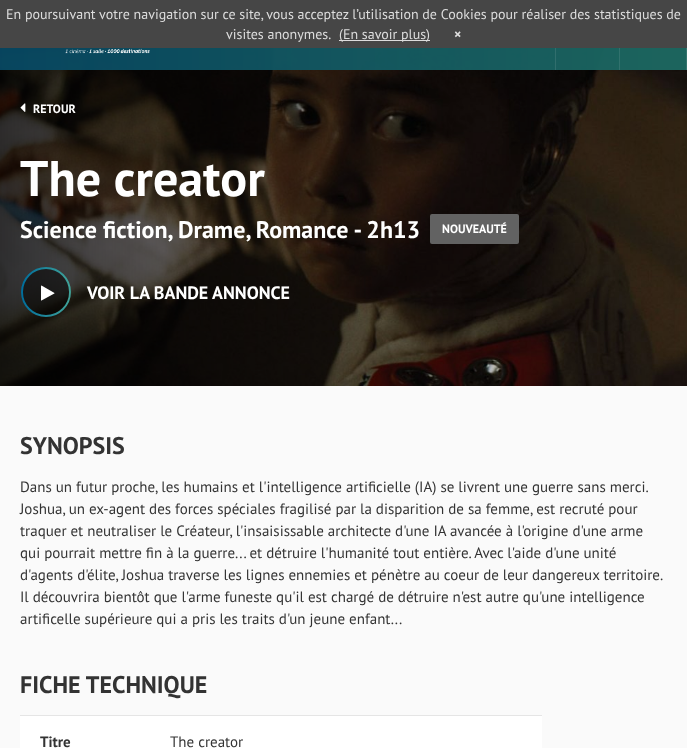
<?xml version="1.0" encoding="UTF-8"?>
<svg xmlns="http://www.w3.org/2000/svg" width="687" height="748">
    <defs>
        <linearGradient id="g1" gradientUnits="userSpaceOnUse" x1="22" y1="292" x2="70" y2="292"><stop offset="0" stop-color="#006E9C"/><stop offset="1" stop-color="#40A399"/></linearGradient>
    </defs>
    <rect width="100%" height="100%" fill="#FAFAFA"/>
    <rect x="0" y="0" width="687" height="48" fill="#464646"/>
    <text x="6" y="19" font-family="PT Sans" font-size="14" fill="#DDDDDD">En poursuivant votre navigation sur ce site, vous acceptez l’utilisation de Cookies pour réaliser des statistiques de</text>
    <text x="226" y="39" font-family="PT Sans" font-size="14" fill="#DDDDDD">visites anonymes.</text>
    <rect x="339" y="40" width="91" height="1" fill="#DDDDDD"/>
    <text x="339" y="39" font-family="PT Sans" font-size="14" fill="#DDDDDD">(En savoir plus)</text>
    <text x="454" y="39" font-family="PT Sans" font-size="14" font-weight="700" fill="#DDDDDD">×</text>
    <image x="0" y="48" width="687" height="338" href="img_02.png"/>
    <image x="65" y="48" width="85" height="6" href="img_01.png"/>
    <rect x="619" y="48" width="1" height="22" fill="#31716D"/>
    <rect x="555" y="48" width="1" height="22" fill="#306E6D"/>
    <rect x="686" y="48" width="1" height="22" fill="#34746D"/>
    <image x="20" y="103" width="6" height="9" href="img_03.png"/>
    <text x="33" y="113" font-family="PT Sans" font-size="12" font-weight="700" fill="#FFFFFF">RETOUR</text>
    <text x="20" y="196" font-family="PT Sans" font-size="50" font-weight="700" fill="#FFFFFF">The creator</text>
    <text x="20" y="238" font-family="PT Sans" font-size="24" font-weight="700" fill="#FFFFFF">Science fiction, Drame, Romance - 2h13</text>
    <rect x="430" y="214" width="89" height="30" rx="2" fill="#626262"/>
    <text x="442" y="233" font-family="PT Sans" font-size="12" font-weight="700" fill="#FFFFFF">NOUVEAUTÉ</text>
    <circle cx="46" cy="292" r="24" fill="#000000" fill-opacity="0.5" stroke="url(#g1)" stroke-width="1.9"/>
    <path d="M 41.5 300.5 H 41 V 288 C 41 286.5 41 285 41.5 285.5 L 54.5 293 C 55 293.5 54 293.5 52.5 294.5 Z" fill="#FFFFFF" fill-rule="evenodd"/>
    <text x="87" y="299" font-family="PT Sans" font-size="18" font-weight="700" fill="#FFFFFF">VOIR LA BANDE ANNONCE</text>
    <text x="20" y="454" font-family="PT Sans" font-size="24" font-weight="700" fill="#333333">SYNOPSIS</text>
    <text font-family="PT Sans" font-size="15" fill="#333333">
        <tspan x="20" y="492">Dans un futur proche, les humains et l'intelligence artificielle (IA) se livrent une guerre sans merci.</tspan>
        <tspan x="20" y="514">Joshua, un ex-agent des forces spéciales fragilisé par la disparition de sa femme, est recruté pour</tspan>
        <tspan x="20" y="536">traquer et neutraliser le Créateur, l'insaisissable architecte d'une IA avancée à l'origine d'une arme</tspan>
        <tspan x="20" y="558">qui pourrait mettre fin à la guerre... et détruire l'humanité tout entière. Avec l'aide d'une unité</tspan>
        <tspan x="20" y="580">d'agents d'élite, Joshua traverse les lignes ennemies et pénètre au coeur de leur dangereux territoire.</tspan>
        <tspan x="20" y="602">Il découvrira bientôt que l'arme funeste qu'il est chargé de détruire n'est autre qu'une intelligence</tspan>
        <tspan x="20" y="624">artificelle supérieure qui a pris les traits d'un jeune enfant...</tspan>
    </text>
    <text x="20" y="693" font-family="PT Sans" font-size="24" font-weight="700" fill="#333333">FICHE TECHNIQUE</text>
    <rect x="20" y="715" width="522" height="1" fill="#E5E5E5"/>
    <rect x="20" y="716" width="522" height="32" fill="#FFFFFF"/>
    <text x="40" y="747" font-family="PT Sans" font-size="15" font-weight="700" fill="#333333">Titre</text>
    <text x="170" y="747" font-family="PT Sans" font-size="15" fill="#333333">The creator</text>
</svg>
